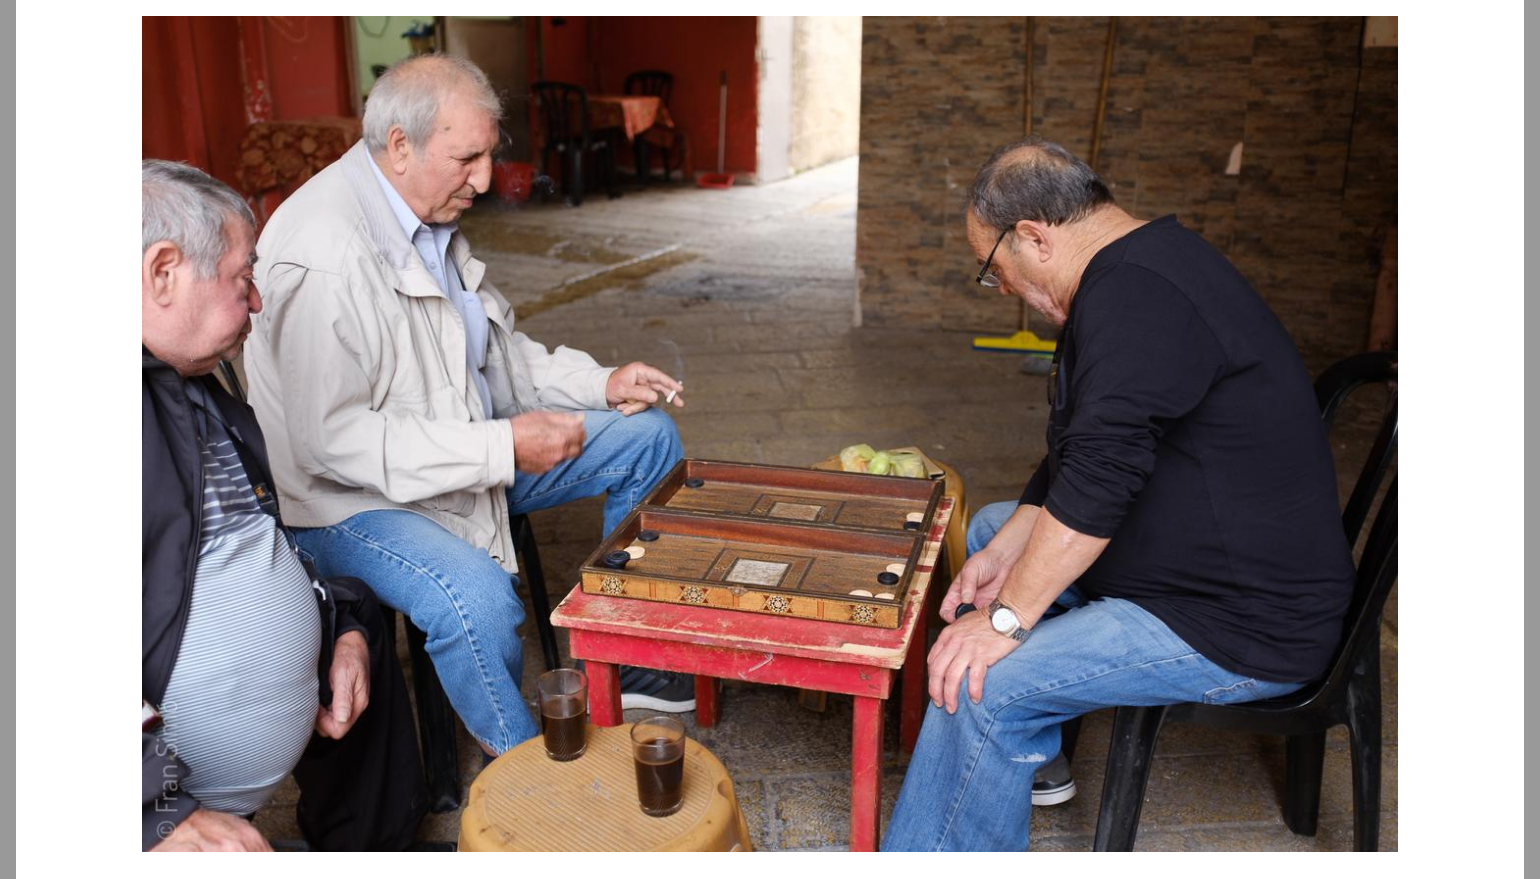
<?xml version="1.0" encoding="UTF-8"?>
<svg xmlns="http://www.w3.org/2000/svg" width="1540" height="879">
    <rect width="100%" height="100%" fill="#999999"/>
    <rect x="16" y="0" width="1508" height="879" fill="#FFFFFF"/>
    <image x="142" y="16" width="1256" height="836" href="img_01.png"/>
</svg>
